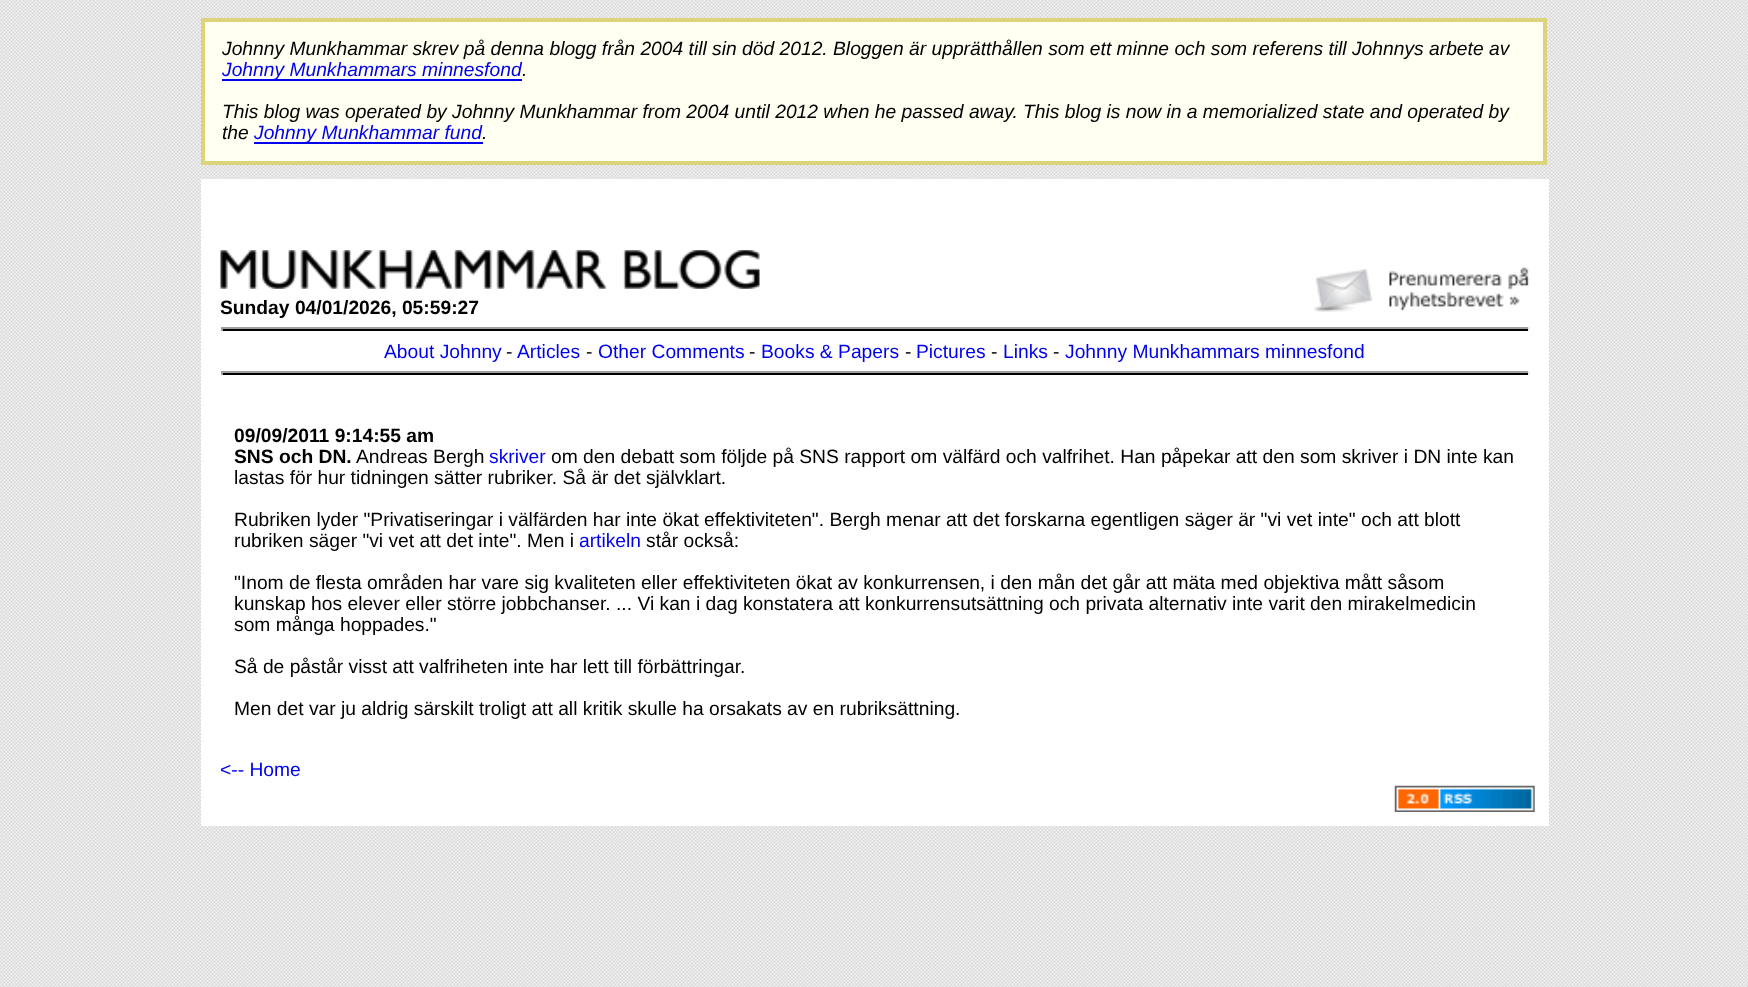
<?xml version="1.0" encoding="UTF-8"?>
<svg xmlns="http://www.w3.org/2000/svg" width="1748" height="987">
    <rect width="100%" height="100%" fill="#FFFFFF"/>
    <image x="0" y="0" width="1748" height="987" href="img_01.png"/>
    <rect x="203" y="20" width="1342" height="143" fill="#FFFFF2" stroke="#DCD37C" stroke-width="4"/>
    <text x="222" y="55" font-family="Liberation Sans" font-size="19.25" font-style="italic" fill="#000000">Johnny Munkhammar skrev på denna blogg från 2004 till sin död 2012. Bloggen är upprätthållen som ett minne och som referens till Johnnys arbete av</text>
    <rect x="222" y="79" width="300" height="2" fill="#0000EE"/>
    <text x="222" y="76" font-family="Liberation Sans" font-size="19.25" font-style="italic" fill="#0000EE">Johnny Munkhammars minnesfond</text>
    <text x="522" y="76" font-family="Liberation Sans" font-size="19.25" font-style="italic" fill="#000000">.</text>
    <text font-family="Liberation Sans" font-size="19.25" font-style="italic" fill="#000000">
        <tspan x="222" y="118">This blog was operated by Johnny Munkhammar from 2004 until 2012 when he passed away. This blog is now in a memorialized state and operated by</tspan>
        <tspan x="222" y="139">the</tspan>
    </text>
    <rect x="254" y="142" width="229" height="2" fill="#0000EE"/>
    <text x="254" y="139" font-family="Liberation Sans" font-size="19.25" font-style="italic" fill="#0000EE">Johnny Munkhammar fund</text>
    <text x="482" y="139" font-family="Liberation Sans" font-size="19.25" font-style="italic" fill="#000000">.</text>
    <rect x="201" y="179" width="1348" height="647" fill="#FFFFFF"/>
    <image x="220" y="250" width="540" height="39" href="img_02.png"/>
    <image x="1314" y="267" width="215" height="45" href="img_03.png"/>
    <text x="220" y="314" font-family="Liberation Sans" font-size="19.25" font-weight="700" fill="#000000">Sunday 04/01/2026, 05:59:27</text>
    <rect x="221" y="329" width="1309" height="2" fill="#000000"/>
    <rect x="221" y="327" width="1309" height="2" fill="#9F9F9F"/>
    <rect x="1528" y="327" width="2" height="4" fill="#EEEEEE"/>
    <rect x="221" y="327" width="2" height="4" fill="#9F9F9F"/>
    <text x="384" y="358" font-family="Liberation Sans" font-size="19.25" fill="#0000EE">About Johnny</text>
    <text x="506" y="358" font-family="Liberation Sans" font-size="19.25" fill="#000000">-</text>
    <text x="517" y="358" font-family="Liberation Sans" font-size="19.25" fill="#0000EE">Articles</text>
    <text x="586" y="358" font-family="Liberation Sans" font-size="19.25" fill="#000000">-</text>
    <text x="598" y="358" font-family="Liberation Sans" font-size="19.25" fill="#0000EE">Other Comments</text>
    <text x="749" y="358" font-family="Liberation Sans" font-size="19.25" fill="#000000">-</text>
    <text x="761" y="358" font-family="Liberation Sans" font-size="19.25" fill="#0000EE">Books &amp; Papers</text>
    <text x="905" y="358" font-family="Liberation Sans" font-size="19.25" fill="#000000">-</text>
    <text x="916" y="358" font-family="Liberation Sans" font-size="19.25" fill="#0000EE">Pictures</text>
    <text x="991" y="358" font-family="Liberation Sans" font-size="19.25" fill="#000000">-</text>
    <text x="1003" y="358" font-family="Liberation Sans" font-size="19.25" fill="#0000EE">Links</text>
    <text x="1053" y="358" font-family="Liberation Sans" font-size="19.25" fill="#000000">-</text>
    <text x="1065" y="358" font-family="Liberation Sans" font-size="19.25" fill="#0000EE">Johnny Munkhammars minnesfond</text>
    <rect x="221" y="373" width="1309" height="2" fill="#000000"/>
    <rect x="221" y="371" width="1309" height="2" fill="#9F9F9F"/>
    <rect x="1528" y="371" width="2" height="4" fill="#EEEEEE"/>
    <rect x="221" y="371" width="2" height="4" fill="#9F9F9F"/>
    <text font-family="Liberation Sans" font-size="19.25" font-weight="700" fill="#000000">
        <tspan x="234" y="442">09/09/2011 9:14:55 am</tspan>
        <tspan x="234" y="463">SNS och DN.</tspan>
    </text>
    <text x="356" y="463" font-family="Liberation Sans" font-size="19.25" fill="#000000">Andreas Bergh</text>
    <text x="489" y="463" font-family="Liberation Sans" font-size="19.25" fill="#0000EE">skriver</text>
    <text x="551" y="463" font-family="Liberation Sans" font-size="19.25" fill="#000000">om den debatt som följde på SNS rapport om välfärd och valfrihet. Han påpekar att den som skriver i DN inte kan</text>
    <text x="234" y="484" font-family="Liberation Sans" font-size="19.25" fill="#000000">lastas för hur tidningen sätter rubriker. Så är det självklart.</text>
    <text font-family="Liberation Sans" font-size="19.25" fill="#000000">
        <tspan x="234" y="526">Rubriken lyder "Privatiseringar i välfärden har inte ökat effektiviteten". Bergh menar att det forskarna egentligen säger är "vi vet inte" och att blott</tspan>
        <tspan x="234" y="547">rubriken säger "vi vet att det inte". Men i</tspan>
    </text>
    <text x="579" y="547" font-family="Liberation Sans" font-size="19.25" fill="#0000EE">artikeln</text>
    <text x="646" y="547" font-family="Liberation Sans" font-size="19.25" fill="#000000">står också:</text>
    <text font-family="Liberation Sans" font-size="19.25" fill="#000000">
        <tspan x="234" y="589">"Inom de flesta områden har vare sig kvaliteten eller effektiviteten ökat av konkurrensen, i den mån det går att mäta med objektiva mått såsom</tspan>
        <tspan x="234" y="610">kunskap hos elever eller större jobbchanser. ... Vi kan i dag konstatera att konkurrensutsättning och privata alternativ inte varit den mirakelmedicin</tspan>
        <tspan x="234" y="631">som många hoppades."</tspan>
    </text>
    <text x="234" y="673" font-family="Liberation Sans" font-size="19.25" fill="#000000">Så de påstår visst att valfriheten inte har lett till förbättringar.</text>
    <text x="234" y="715" font-family="Liberation Sans" font-size="19.25" fill="#000000">Men det var ju aldrig särskilt troligt att all kritik skulle ha orsakats av en rubriksättning.</text>
    <text x="220" y="776" font-family="Liberation Sans" font-size="19.25" fill="#0000EE">&lt;-- Home</text>
    <image x="1394" y="785" width="141" height="27" href="img_04.png"/>
</svg>
